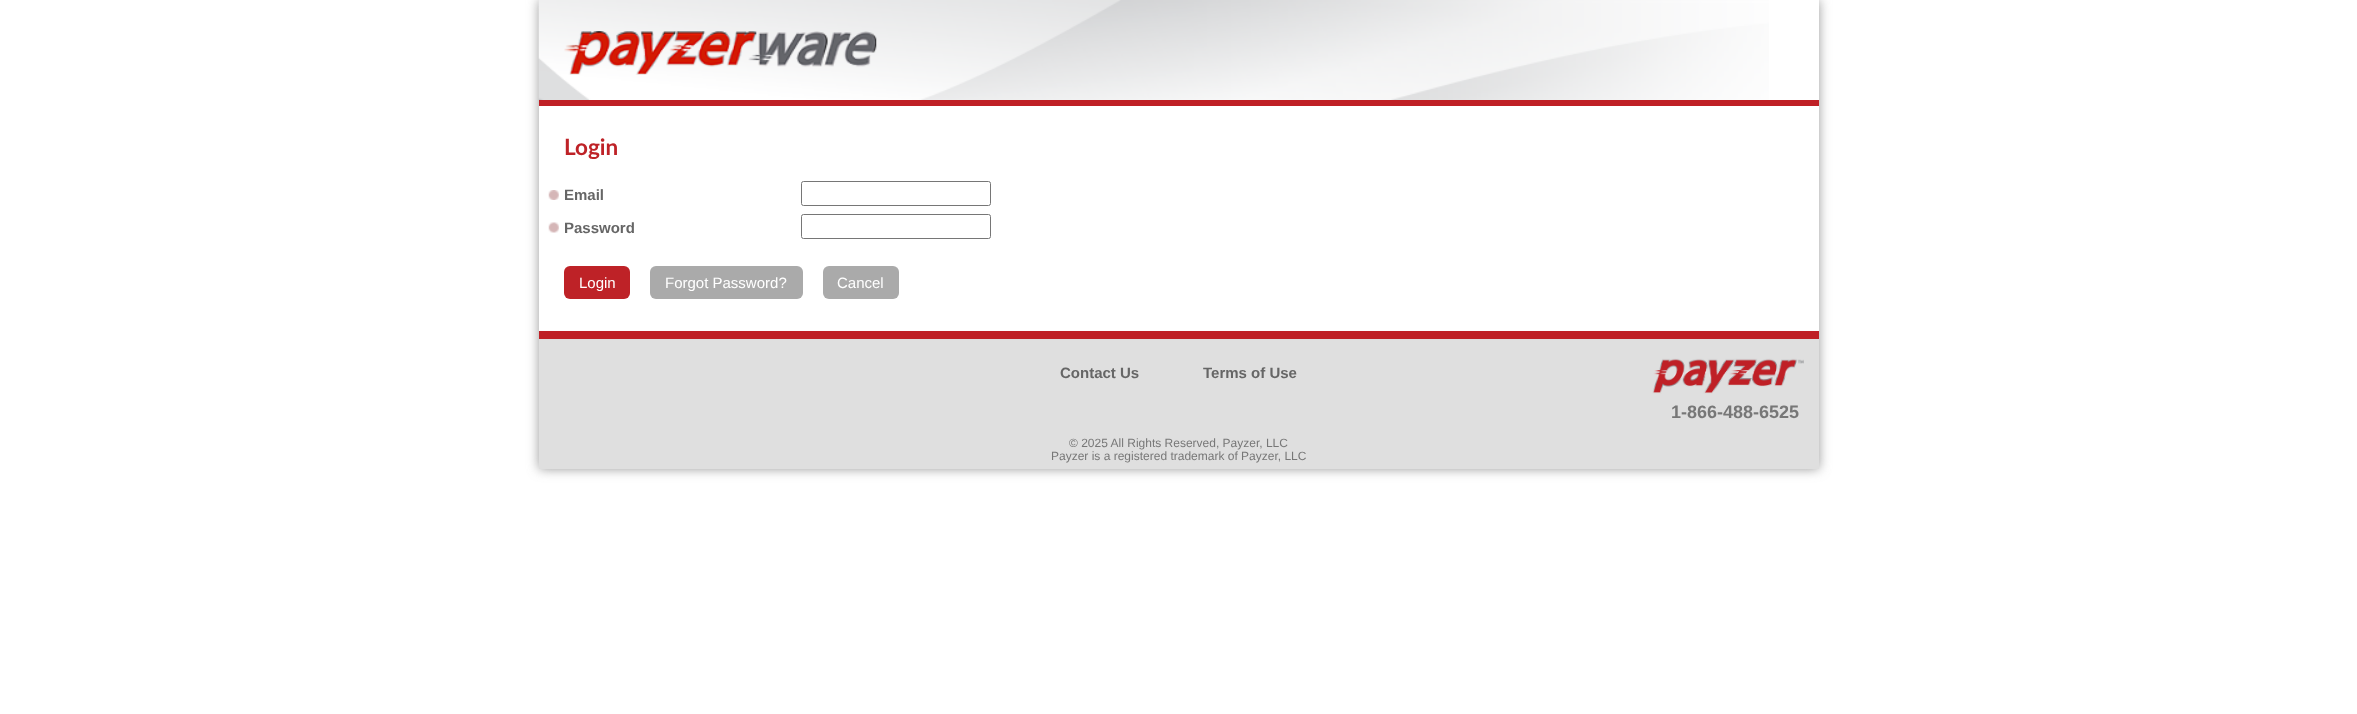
<?xml version="1.0" encoding="UTF-8"?>
<svg xmlns="http://www.w3.org/2000/svg" width="2357" height="714">
    <defs>
        <filter id="blur1" x="-50%" y="-200%" width="200%" height="500%"><feGaussianBlur stdDeviation="6"/></filter>
    </defs>
    <rect width="100%" height="100%" fill="#FFFFFF"/>
    <rect x="539" y="0" width="1280" height="469" fill="#999999" filter="url(#blur1)"/>
    <rect x="539" y="0" width="1280" height="331" fill="#FFFFFF"/>
    <rect x="539" y="100" width="1280" height="6" fill="#BF2026"/>
    <image x="538" y="0" width="1231" height="100" href="img_01.png"/>
    <image x="564" y="31" width="313" height="44" href="img_02.png"/>
    <text x="564" y="155" font-family="Lato" font-size="22.5" font-weight="700" fill="#BE2227">Login</text>
    <image x="548" y="190" width="11" height="10" href="img_03.png"/>
    <text x="564" y="200" font-family="Liberation Sans" font-size="15" font-weight="700" fill="#666666">Email</text>
    <rect x="801.5" y="181.5" width="189" height="24" rx="2" fill="none" stroke="#767676"/>
    <image x="548" y="222" width="11" height="11" href="img_04.png"/>
    <text x="564" y="233" font-family="Liberation Sans" font-size="15" font-weight="700" fill="#666666">Password</text>
    <rect x="801.5" y="214.5" width="189" height="24" rx="2" fill="none" stroke="#767676"/>
    <rect x="564" y="266" width="66" height="33" rx="6" fill="#BE2227"/>
    <text x="579" y="288" font-family="Liberation Sans" font-size="15" fill="#FFFFFF">Login</text>
    <rect x="650" y="266" width="153" height="33" rx="6" fill="#AAAAAA"/>
    <text x="665" y="288" font-family="Liberation Sans" font-size="15" fill="#FFFFFF">Forgot Password?</text>
    <rect x="823" y="266" width="76" height="33" rx="6" fill="#AAAAAA"/>
    <text x="837" y="288" font-family="Liberation Sans" font-size="15" fill="#FFFFFF">Cancel</text>
    <rect x="539" y="339" width="1280" height="130" fill="#DFDFDF"/>
    <rect x="539" y="331" width="1280" height="8" fill="#BF2026"/>
    <text x="1060" y="378" font-family="Liberation Sans" font-size="15" font-weight="700" fill="#666666">Contact Us</text>
    <text x="1203" y="378" font-family="Liberation Sans" font-size="15" font-weight="700" fill="#666666">Terms of Use</text>
    <image x="1652" y="358" width="152" height="36" href="img_05.png"/>
    <text x="1671" y="418" font-family="Liberation Sans" font-size="18" font-weight="700" fill="#777777">1-866-488-6525</text>
    <text x="1069" y="447" font-family="Liberation Sans" font-size="12" fill="#777777">© 2025 All Rights Reserved, Payzer, LLC</text>
    <text x="1051" y="460" font-family="Liberation Sans" font-size="12" fill="#777777">Payzer is a registered trademark of Payzer, LLC</text>
</svg>
